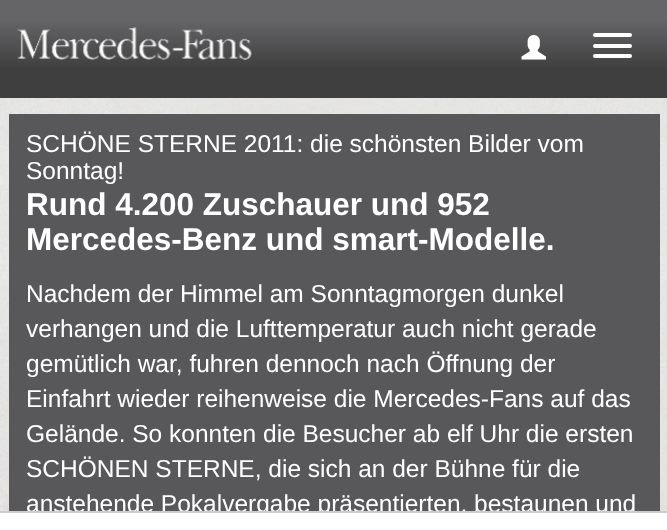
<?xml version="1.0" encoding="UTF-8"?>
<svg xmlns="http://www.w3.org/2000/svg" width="667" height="530">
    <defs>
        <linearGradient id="g1" gradientUnits="userSpaceOnUse" x1="334" y1="0" x2="334" y2="98"><stop offset="0.2" stop-color="#656567"/><stop offset="0.7" stop-color="#3F3F40"/></linearGradient>
    </defs>
    <rect width="100%" height="100%" fill="#FFFFFF"/>
    <image x="0" y="98" width="667" height="413" href="img_01.png"/>
    <rect x="0" y="0" width="667" height="98" fill="url(#g1)"/>
    <image x="17" y="27" width="235" height="33" href="img_02.png"/>
    <image x="521" y="35" width="25" height="25" href="img_03.png"/>
    <rect x="593" y="33" width="39" height="4" rx="2" fill="#FFFFFF"/>
    <rect x="593" y="44" width="39" height="4" rx="2" fill="#FFFFFF"/>
    <rect x="593" y="54" width="39" height="4" rx="2" fill="#FFFFFF"/>
    <rect x="9" y="114" width="651" height="397" fill="#58585A"/>
    <text font-family="Liberation Sans" font-size="24.5" fill="#FFFFFF">
        <tspan x="26" y="152">SCHÖNE STERNE 2011: die schönsten Bilder vom</tspan>
        <tspan x="26" y="179">Sonntag!</tspan>
    </text>
    <text font-family="Liberation Sans" font-size="31.5" font-weight="700" fill="#FFFFFF">
        <tspan x="26" y="215">Rund 4.200 Zuschauer und 952</tspan>
        <tspan x="26" y="250">Mercedes-Benz und smart-Modelle.</tspan>
    </text>
    <text font-family="Liberation Sans" font-size="24.5" fill="#FFFFFF">
        <tspan x="26" y="302">Nachdem der Himmel am Sonntagmorgen dunkel</tspan>
        <tspan x="26" y="337">verhangen und die Lufttemperatur auch nicht gerade</tspan>
        <tspan x="26" y="372">gemütlich war, fuhren dennoch nach Öffnung der</tspan>
        <tspan x="26" y="407">Einfahrt wieder reihenweise die Mercedes-Fans auf das</tspan>
        <tspan x="26" y="442">Gelände. So konnten die Besucher ab elf Uhr die ersten</tspan>
        <tspan x="26" y="477">SCHÖNEN STERNE, die sich an der Bühne für die</tspan>
        <tspan x="26" y="512">anstehende Pokalvergabe präsentierten, bestaunen und</tspan>
    </text>
    <rect x="0" y="511" width="667" height="2" fill="#CCCCCC"/>
</svg>
